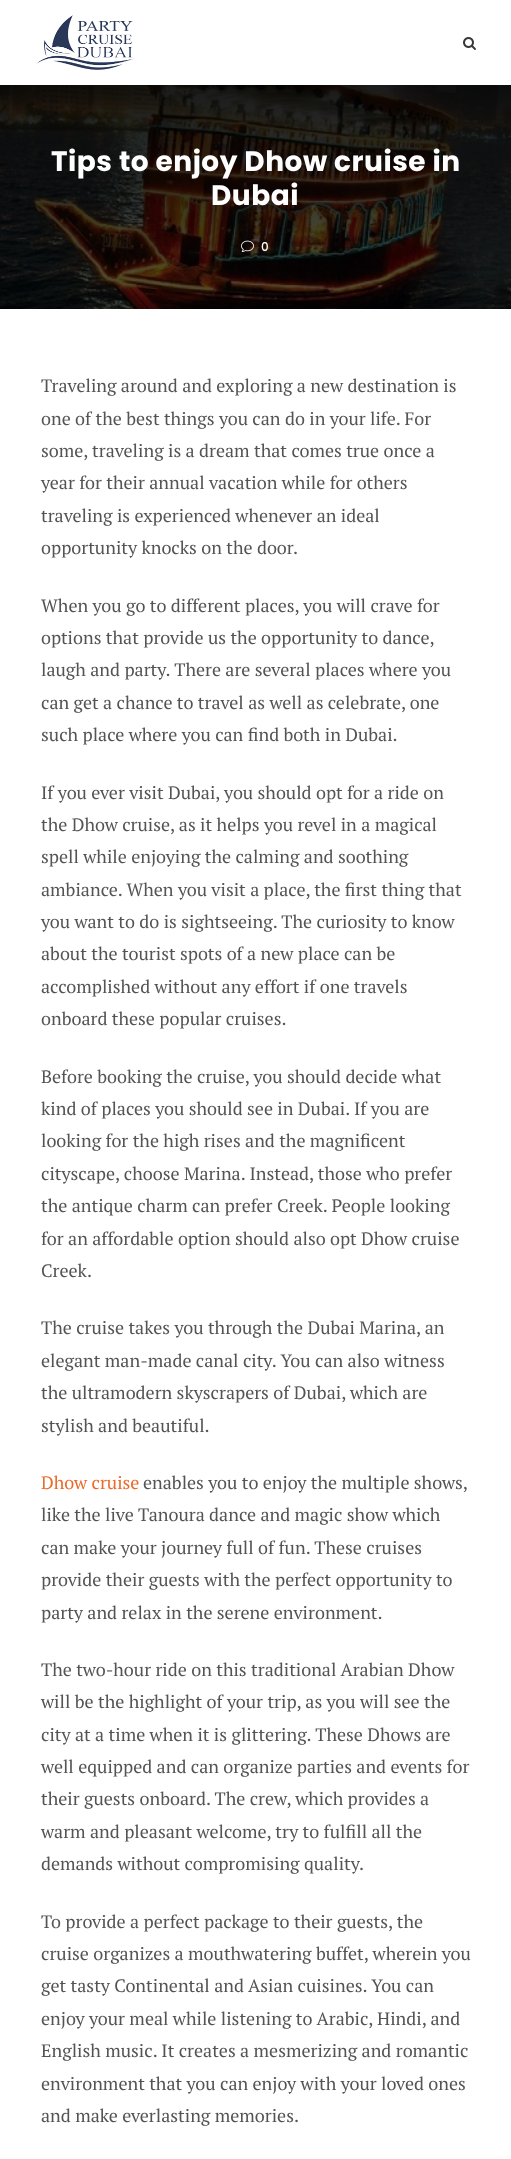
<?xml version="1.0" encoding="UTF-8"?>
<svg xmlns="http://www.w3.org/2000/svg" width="511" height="2159">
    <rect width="100%" height="100%" fill="#FFFFFF"/>
    <image x="36" y="15" width="98" height="55" href="img_01.png"/>
    <image x="463" y="37" width="13" height="13" href="img_02.png"/>
    <image x="0" y="85" width="511" height="224" href="img_03.png"/>
    <text x="51" y="171" font-family="Poppins" font-size="28" font-weight="700" letter-spacing="0.5" fill="#FFFFFF">Tips to enjoy Dhow cruise in</text>
    <text x="211" y="205" font-family="Poppins" font-size="28" font-weight="700" letter-spacing="0.5" fill="#FFFFFF">Dubai</text>
    <image x="241" y="240" width="13" height="12" href="img_04.png"/>
    <text x="261" y="251" font-family="Poppins" font-size="12" font-weight="500" letter-spacing="1" fill="#FFFFFF">0</text>
    <text font-family="PT Serif" font-size="18" fill="#545454">
        <tspan x="41" y="392">Traveling around and exploring a new destination is</tspan>
        <tspan x="41" y="425">one of the best things you can do in your life. For</tspan>
        <tspan x="41" y="457">some, traveling is a dream that comes true once a</tspan>
        <tspan x="41" y="489">year for their annual vacation while for others</tspan>
        <tspan x="41" y="522">traveling is experienced whenever an ideal</tspan>
        <tspan x="41" y="554">opportunity knocks on the door.</tspan>
    </text>
    <text font-family="PT Serif" font-size="18" fill="#545454">
        <tspan x="41" y="612">When you go to different places, you will crave for</tspan>
        <tspan x="41" y="644">options that provide us the opportunity to dance,</tspan>
        <tspan x="41" y="676">laugh and party. There are several places where you</tspan>
        <tspan x="41" y="709">can get a chance to travel as well as celebrate, one</tspan>
        <tspan x="41" y="741">such place where you can find both in Dubai.</tspan>
    </text>
    <text font-family="PT Serif" font-size="18" fill="#545454">
        <tspan x="41" y="799">If you ever visit Dubai, you should opt for a ride on</tspan>
        <tspan x="41" y="831">the Dhow cruise, as it helps you revel in a magical</tspan>
        <tspan x="41" y="863">spell while enjoying the calming and soothing</tspan>
        <tspan x="41" y="896">ambiance. When you visit a place, the first thing that</tspan>
        <tspan x="41" y="928">you want to do is sightseeing. The curiosity to know</tspan>
        <tspan x="41" y="960">about the tourist spots of a new place can be</tspan>
        <tspan x="41" y="993">accomplished without any effort if one travels</tspan>
        <tspan x="41" y="1025">onboard these popular cruises.</tspan>
    </text>
    <text font-family="PT Serif" font-size="18" fill="#545454">
        <tspan x="41" y="1083">Before booking the cruise, you should decide what</tspan>
        <tspan x="41" y="1115">kind of places you should see in Dubai. If you are</tspan>
        <tspan x="41" y="1147">looking for the high rises and the magnificent</tspan>
        <tspan x="41" y="1180">cityscape, choose Marina. Instead, those who prefer</tspan>
        <tspan x="41" y="1212">the antique charm can prefer Creek. People looking</tspan>
        <tspan x="41" y="1245">for an affordable option should also opt Dhow cruise</tspan>
        <tspan x="41" y="1277">Creek.</tspan>
    </text>
    <text font-family="PT Serif" font-size="18" fill="#545454">
        <tspan x="41" y="1334">The cruise takes you through the Dubai Marina, an</tspan>
        <tspan x="41" y="1367">elegant man-made canal city. You can also witness</tspan>
        <tspan x="41" y="1399">the ultramodern skyscrapers of Dubai, which are</tspan>
        <tspan x="41" y="1432">stylish and beautiful.</tspan>
    </text>
    <text x="41" y="1489" font-family="PT Serif" font-size="18" fill="#EC6A2A">Dhow cruise</text>
    <text x="143" y="1489" font-family="PT Serif" font-size="18" fill="#545454">enables you to enjoy the multiple shows,</text>
    <text font-family="PT Serif" font-size="18" fill="#545454">
        <tspan x="41" y="1521">like the live Tanoura dance and magic show which</tspan>
        <tspan x="41" y="1554">can make your journey full of fun. These cruises</tspan>
        <tspan x="41" y="1586">provide their guests with the perfect opportunity to</tspan>
        <tspan x="41" y="1619">party and relax in the serene environment.</tspan>
    </text>
    <text font-family="PT Serif" font-size="18" fill="#545454">
        <tspan x="41" y="1676">The two-hour ride on this traditional Arabian Dhow</tspan>
        <tspan x="41" y="1708">will be the highlight of your trip, as you will see the</tspan>
        <tspan x="41" y="1741">city at a time when it is glittering. These Dhows are</tspan>
        <tspan x="41" y="1773">well equipped and can organize parties and events for</tspan>
        <tspan x="41" y="1805">their guests onboard. The crew, which provides a</tspan>
        <tspan x="41" y="1838">warm and pleasant welcome, try to fulfill all the</tspan>
        <tspan x="41" y="1870">demands without compromising quality.</tspan>
    </text>
    <text font-family="PT Serif" font-size="18" fill="#545454">
        <tspan x="41" y="1928">To provide a perfect package to their guests, the</tspan>
        <tspan x="41" y="1960">cruise organizes a mouthwatering buffet, wherein you</tspan>
        <tspan x="41" y="1992">get tasty Continental and Asian cuisines. You can</tspan>
        <tspan x="41" y="2025">enjoy your meal while listening to Arabic, Hindi, and</tspan>
        <tspan x="41" y="2057">English music. It creates a mesmerizing and romantic</tspan>
        <tspan x="41" y="2090">environment that you can enjoy with your loved ones</tspan>
        <tspan x="41" y="2122">and make everlasting memories.</tspan>
    </text>
</svg>
